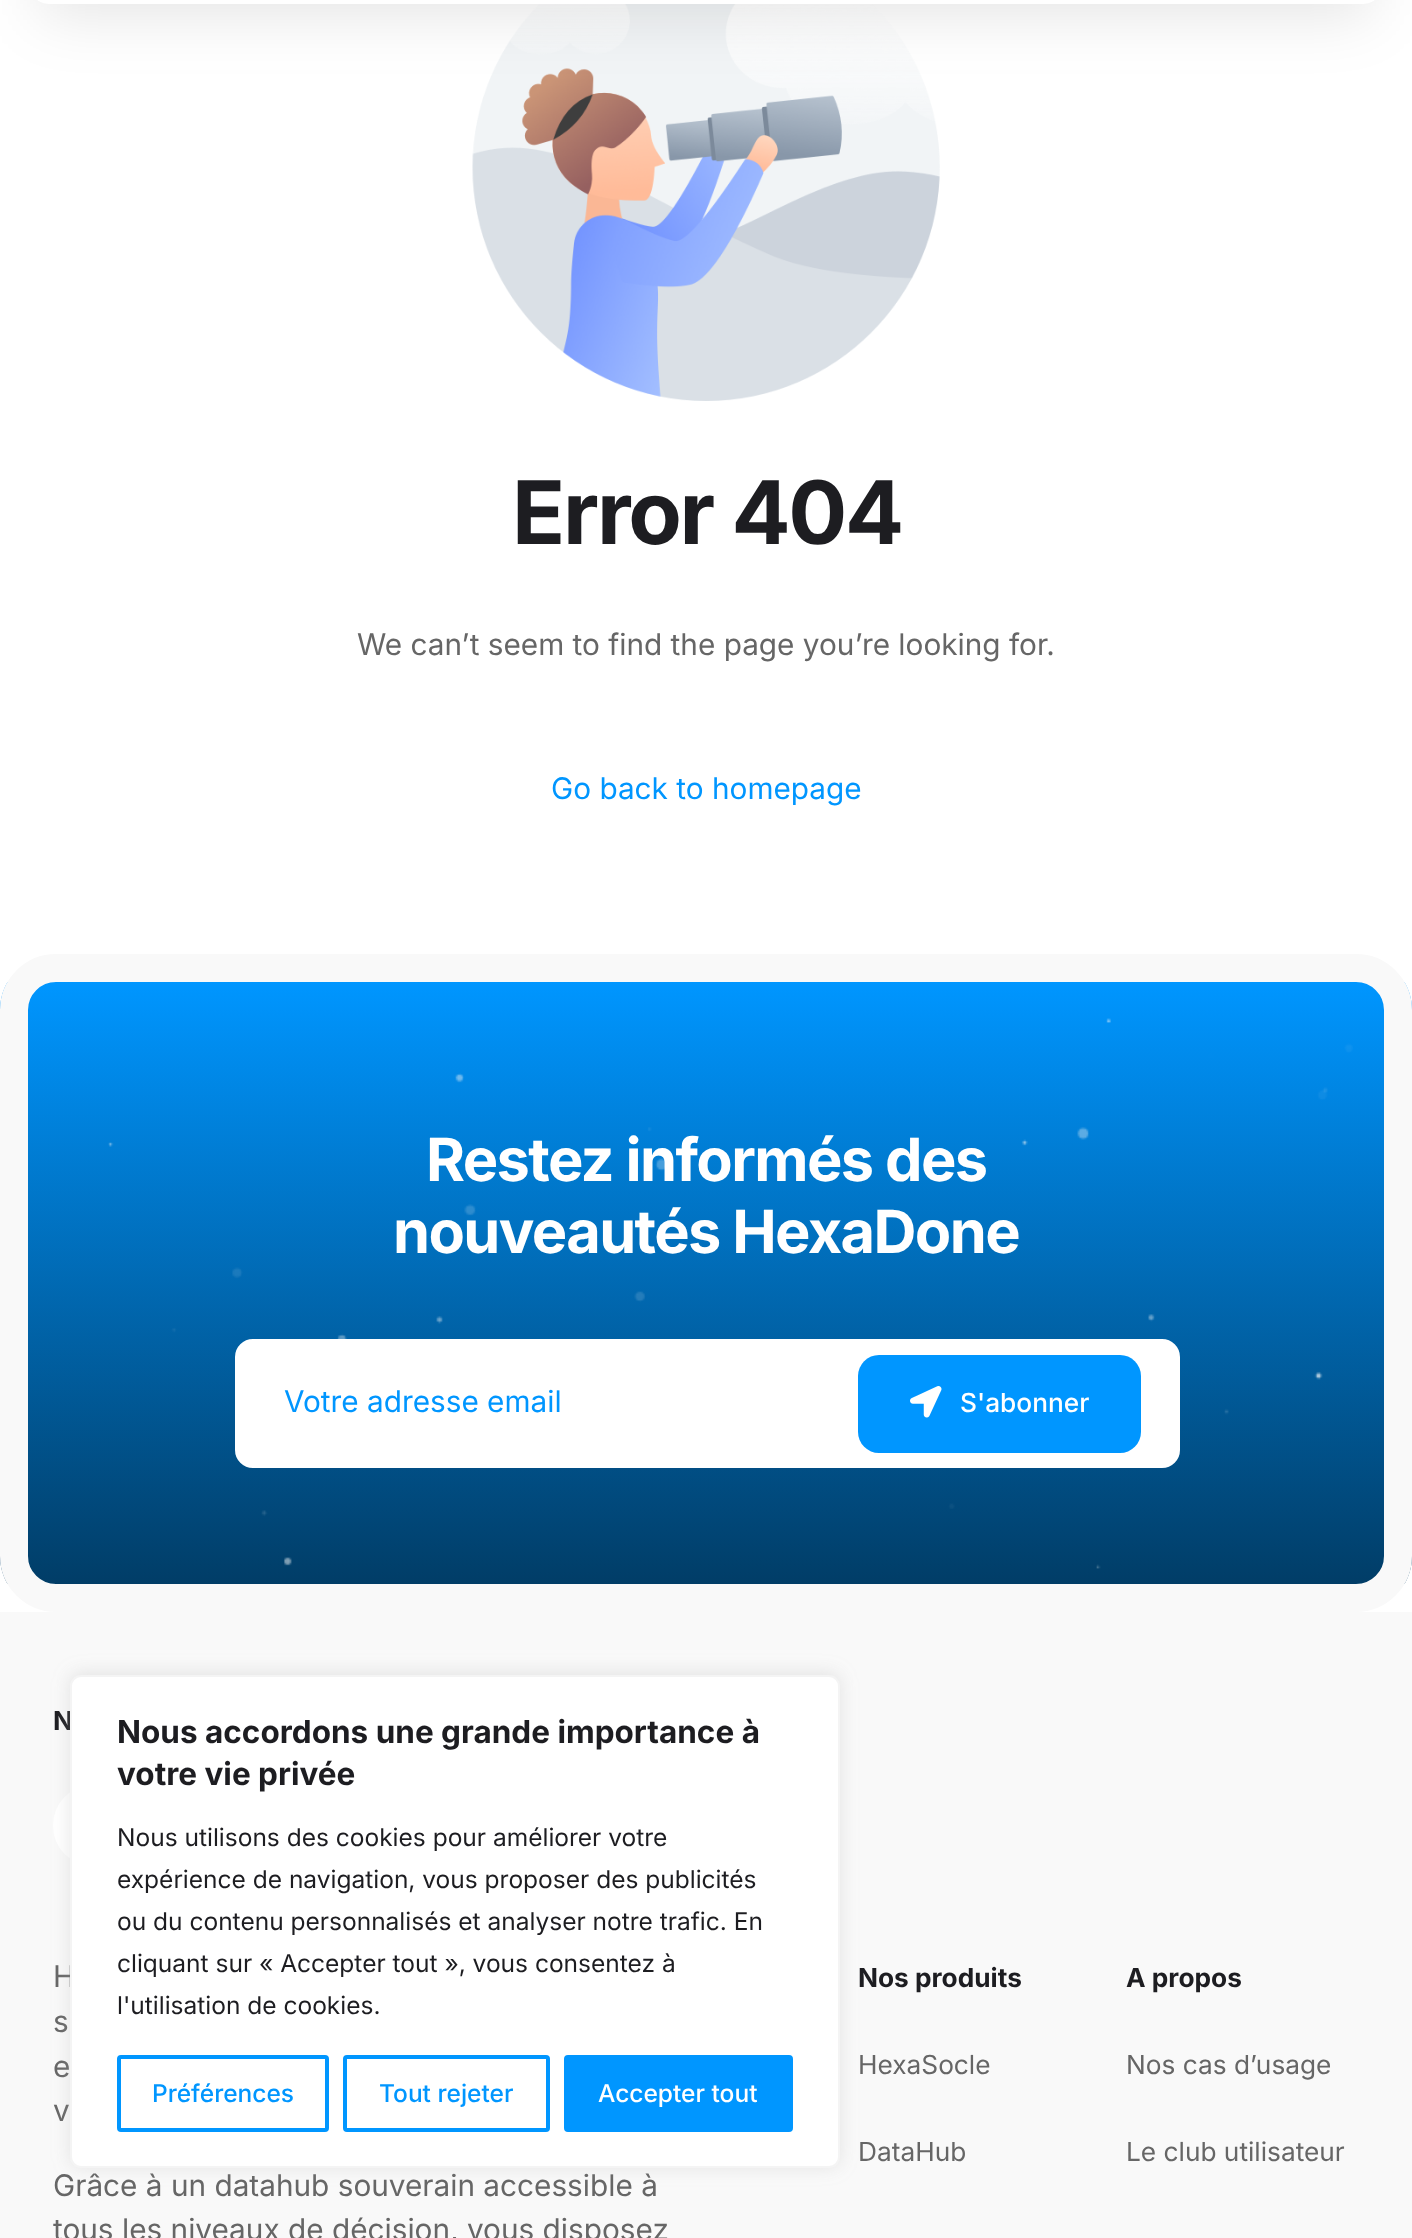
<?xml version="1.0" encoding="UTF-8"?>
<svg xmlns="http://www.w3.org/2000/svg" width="1412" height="2238">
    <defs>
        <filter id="blur1" x="-50%" y="-200%" width="200%" height="500%"><feGaussianBlur stdDeviation="30.5"/></filter>
        <clipPath id="clip1"><rect x="0" y="954" width="1412" height="658" rx="56"/></clipPath>
        <linearGradient id="g1" gradientUnits="userSpaceOnUse" x1="706" y1="982" x2="706" y2="1584"><stop offset="0" stop-color="#0096FF"/><stop offset="1" stop-color="#013D67"/></linearGradient>
        <filter id="blur2" x="-50%" y="-200%" width="200%" height="500%"><feGaussianBlur stdDeviation="9"/></filter>
    </defs>
    <rect width="100%" height="100%" fill="#FFFFFF"/>
    <image x="472" y="4" width="468" height="397" href="img_01.png"/>
    <rect x="40" y="-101" width="1332" height="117" rx="9" fill="#000000" fill-opacity="0.1" filter="url(#blur1)"/>
    <rect x="35" y="-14" width="1342" height="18" rx="14" fill="#FFFFFF"/>
    <text x="512" y="544" font-family="Inter" font-size="87.5" font-weight="700" letter-spacing="-2.25" fill="#1D1D21">Error 404</text>
    <text x="357" y="655" font-family="Inter" font-size="29.75" fill="#666666">We can’t seem to find the page you’re looking for.</text>
    <text x="551" y="799" font-family="Inter" font-size="29.75" fill="#0096FF">Go back to homepage</text>
    <g clip-path="url(#clip1)">
        <rect x="0" y="982" width="1412" height="602" fill="url(#g1)"/>
    </g>
    <rect x="14" y="968" width="1384" height="630" rx="42" fill="none" stroke="#F9F9F9" stroke-width="28"/>
    <image x="108" y="1018" width="1245" height="551" href="img_02.png"/>
    <text x="426" y="1181" font-family="Inter" font-size="59.5" font-weight="700" letter-spacing="-1.6" fill="#FFFFFF">Restez informés des</text>
    <text x="393" y="1253" font-family="Inter" font-size="59.5" font-weight="700" letter-spacing="-1.6" fill="#FFFFFF">nouveautés HexaDone</text>
    <rect x="236" y="1340" width="943" height="127" rx="17" fill="#FFFFFF" stroke="#FFFFFF" stroke-width="2"/>
    <text x="284" y="1412" font-family="Inter" font-size="29.75" fill="#0096FF">Votre adresse email</text>
    <rect x="858" y="1355" width="283" height="98" rx="21" fill="#0096FF"/>
    <image x="910" y="1386" width="32" height="32" href="img_03.png"/>
    <text x="960" y="1412" font-family="Inter" font-size="26.25" font-weight="500" fill="#FFFFFF">S'abonner</text>
    <rect x="0" y="1612" width="1412" height="626" fill="#F9F9F9"/>
    <text x="53" y="1730" font-family="Inter" font-size="26.25" font-weight="700" fill="#1D1D21">N</text>
    <rect x="53" y="1785" width="80" height="81" rx="40" fill="#FFFFFF"/>
    <text font-family="Inter" font-size="29.75" fill="#666666">
        <tspan x="53" y="1987">H</tspan>
        <tspan x="53" y="2032">s</tspan>
        <tspan x="53" y="2077">e</tspan>
        <tspan x="53" y="2121">v</tspan>
    </text>
    <text font-family="Inter" font-size="29.75" fill="#666666">
        <tspan x="53" y="2196">Grâce à un datahub souverain accessible à</tspan>
        <tspan x="53" y="2240">tous les niveaux de décision, vous disposez</tspan>
    </text>
    <text x="858" y="1987" font-family="Inter" font-size="26.25" font-weight="700" fill="#1D1D21">Nos produits</text>
    <text x="858" y="2074" font-family="Inter" font-size="26.25" fill="#666666">HexaSocle</text>
    <text x="858" y="2161" font-family="Inter" font-size="26.25" fill="#666666">DataHub</text>
    <text x="1126" y="1987" font-family="Inter" font-size="26.25" font-weight="700" fill="#1D1D21">A propos</text>
    <text x="1126" y="2074" font-family="Inter" font-size="26.25" fill="#666666">Nos cas d’usage</text>
    <text x="1126" y="2161" font-family="Inter" font-size="26.25" fill="#666666">Le club utilisateur</text>
    <rect x="70" y="1673" width="770" height="494" rx="11" fill="#ACABAB" fill-opacity="0.3" filter="url(#blur2)"/>
    <rect x="71" y="1676" width="768" height="491" rx="10" fill="#FFFFFF" stroke="#F4F4F4" stroke-width="2"/>
    <text font-family="Inter" font-size="31.5" font-weight="700" fill="#1D1D21">
        <tspan x="117" y="1743">Nous accordons une grande importance à</tspan>
        <tspan x="117" y="1785">votre vie privée</tspan>
    </text>
    <text font-family="Inter" font-size="24.5" fill="#1D1D21">
        <tspan x="117" y="1846">Nous utilisons des cookies pour améliorer votre</tspan>
        <tspan x="117" y="1888">expérience de navigation, vous proposer des publicités</tspan>
        <tspan x="117" y="1930">ou du contenu personnalisés et analyser notre trafic. En</tspan>
        <tspan x="117" y="1972">cliquant sur « Accepter tout », vous consentez à</tspan>
        <tspan x="117" y="2014">l'utilisation de cookies.</tspan>
    </text>
    <rect x="119" y="2057" width="208" height="73" rx="2" fill="none" stroke="#0096FF" stroke-width="4"/>
    <text x="152" y="2102" font-family="Inter" font-size="24.5" font-weight="500" fill="#0096FF">Préférences</text>
    <rect x="345" y="2057" width="203" height="73" rx="2" fill="none" stroke="#0096FF" stroke-width="4"/>
    <text x="379" y="2102" font-family="Inter" font-size="24.5" font-weight="500" fill="#0096FF">Tout rejeter</text>
    <rect x="566" y="2057" width="225" height="73" rx="2" fill="#0096FF" stroke="#0096FF" stroke-width="4"/>
    <text x="598" y="2102" font-family="Inter" font-size="24.5" font-weight="500" fill="#FFFFFF">Accepter tout</text>
</svg>
